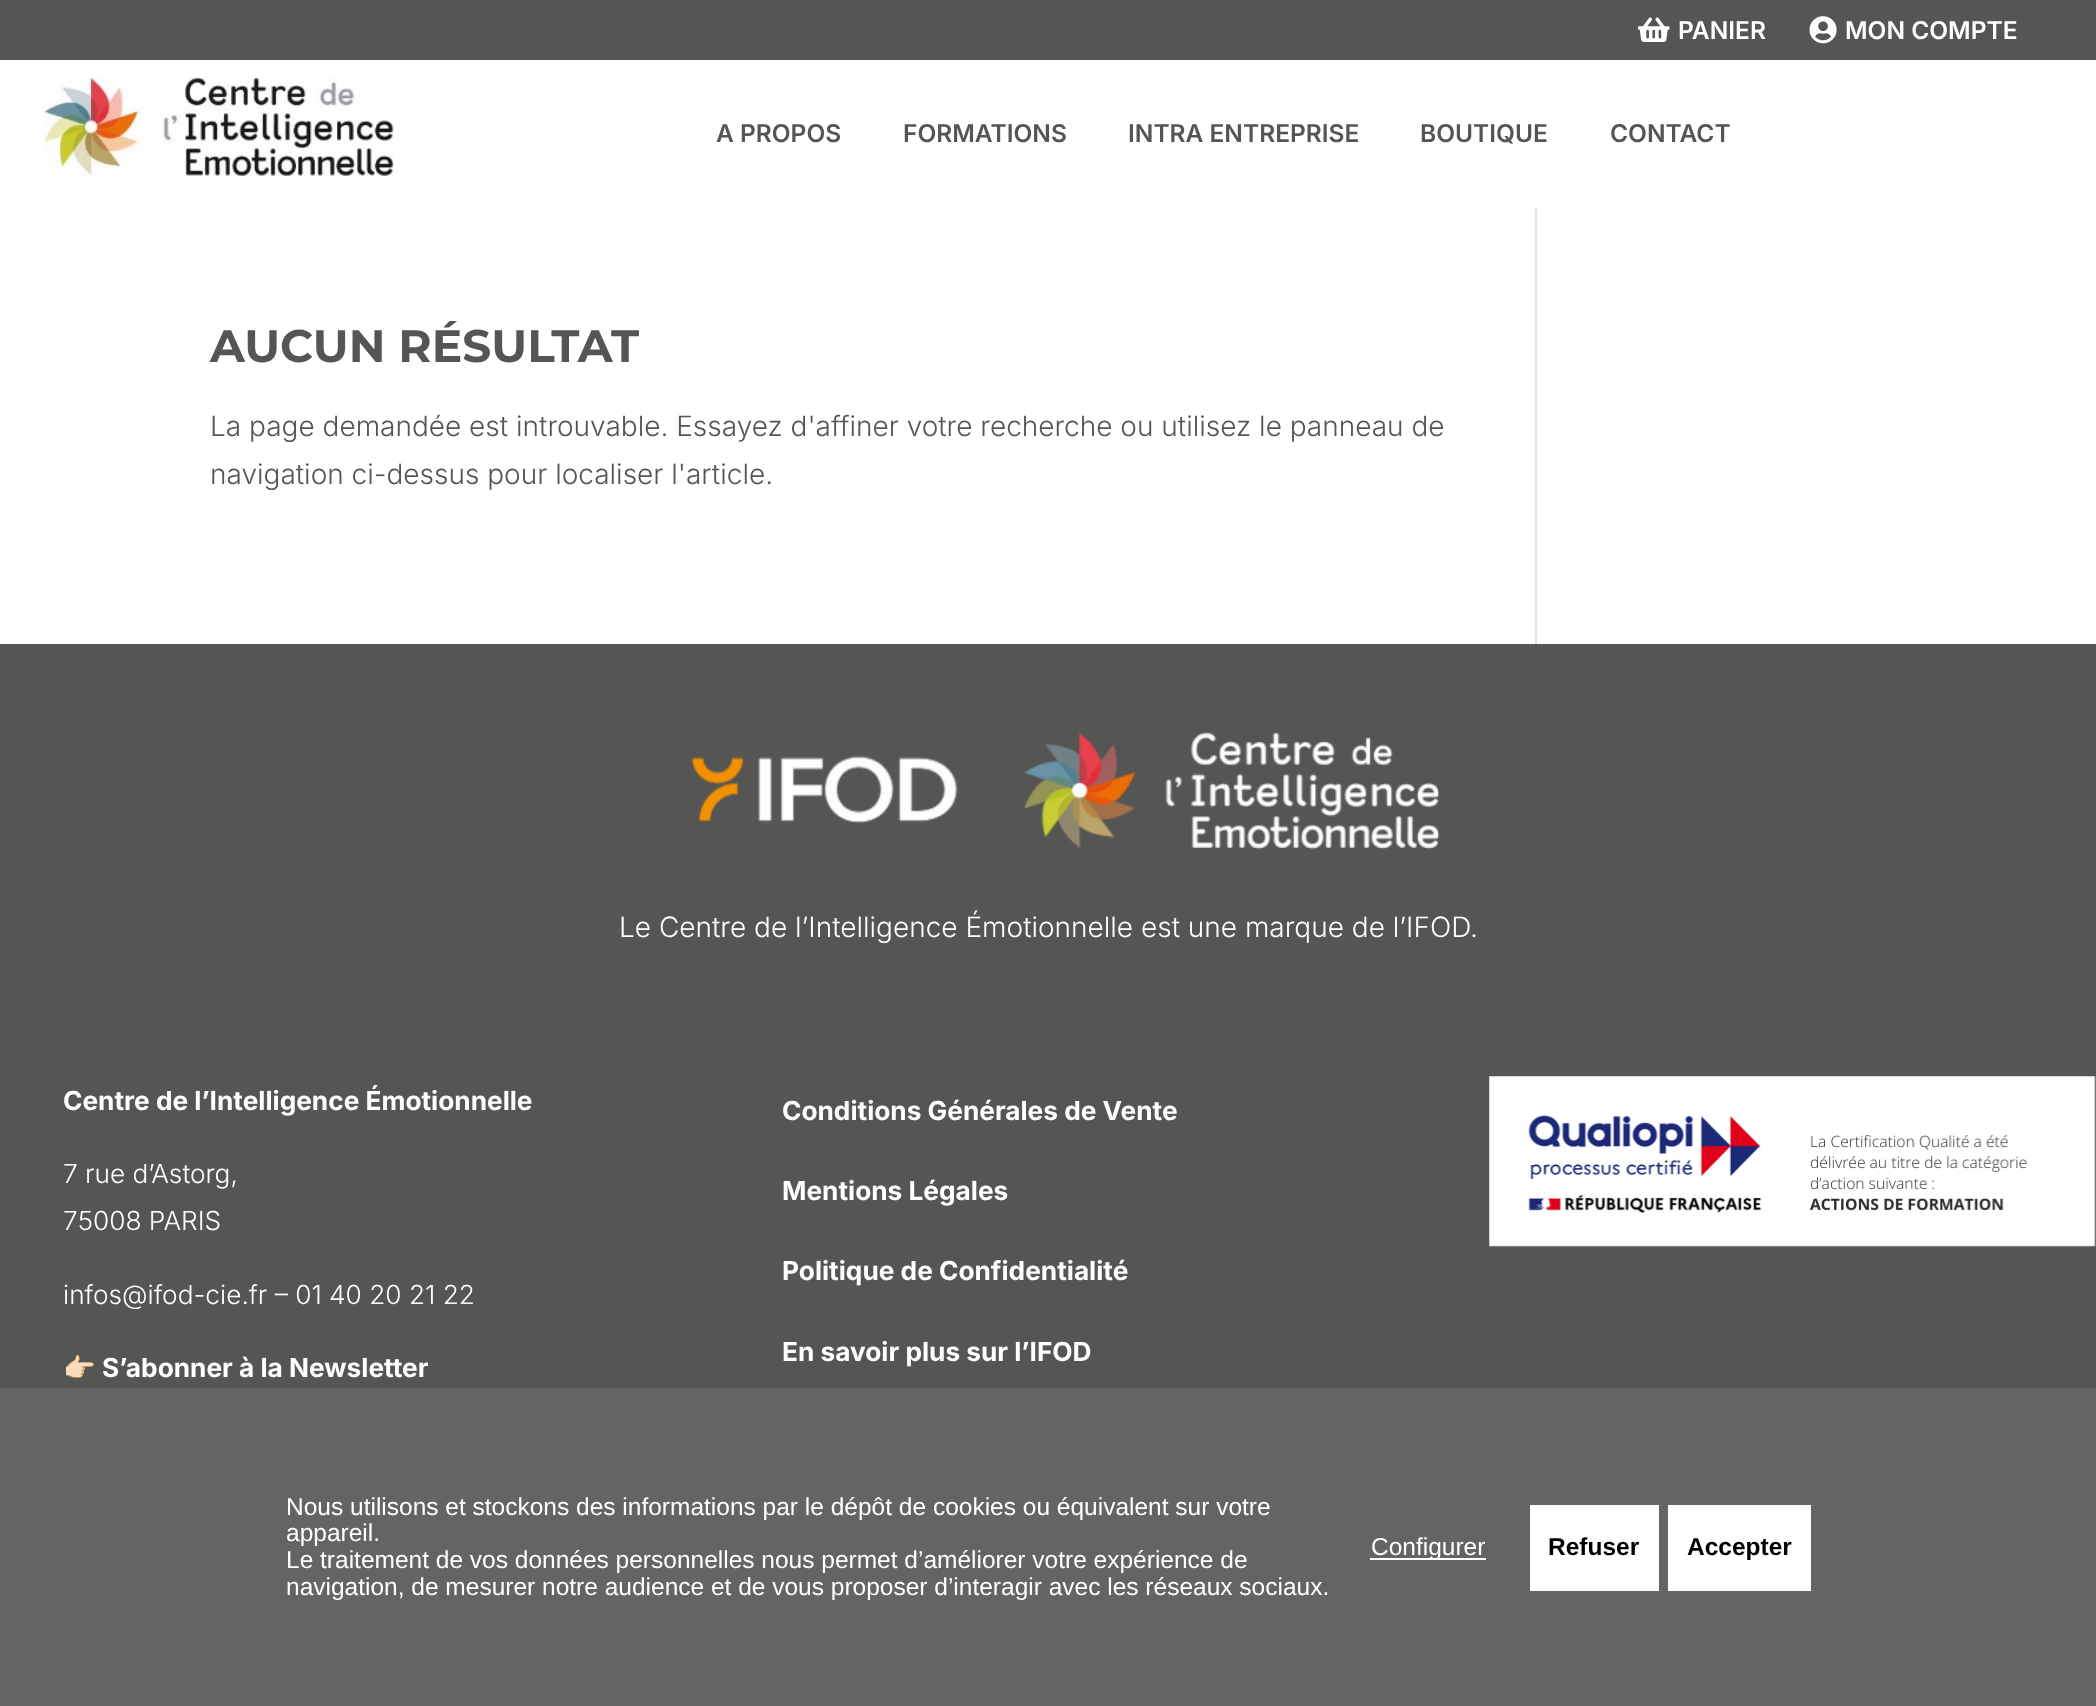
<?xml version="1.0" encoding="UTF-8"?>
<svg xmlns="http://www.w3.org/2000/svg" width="2096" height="1706">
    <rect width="100%" height="100%" fill="#FFFFFF"/>
    <rect x="0" y="0" width="2096" height="60" fill="#555554"/>
    <image x="1638" y="17" width="32" height="25" href="img_01.png"/>
    <text x="1678" y="39" font-family="Inter" font-size="24.5" font-weight="600" fill="#FFFFFF">PANIER</text>
    <image x="1809" y="16" width="28" height="28" href="img_02.png"/>
    <text x="1845" y="39" font-family="Inter" font-size="24.5" font-weight="600" fill="#FFFFFF">MON COMPTE</text>
    <image x="43" y="77" width="351" height="100" href="img_03.png"/>
    <text x="716" y="142" font-family="Inter" font-size="24.5" font-weight="600" fill="#555554">A PROPOS</text>
    <text x="903" y="142" font-family="Inter" font-size="24.5" font-weight="600" fill="#555554">FORMATIONS</text>
    <text x="1128" y="142" font-family="Inter" font-size="24.5" font-weight="600" fill="#555554">INTRA ENTREPRISE</text>
    <text x="1420" y="142" font-family="Inter" font-size="24.5" font-weight="600" fill="#555554">BOUTIQUE</text>
    <text x="1610" y="142" font-family="Inter" font-size="24.5" font-weight="600" fill="#555554">CONTACT</text>
    <text x="210" y="362" font-family="Montserrat" font-size="45.5" font-weight="700" fill="#555554">AUCUN RÉSULTAT</text>
    <text font-family="Inter" font-size="28" font-weight="300" fill="#555554">
        <tspan x="210" y="436">La page demandée est introuvable. Essayez d'affiner votre recherche ou utilisez le panneau de</tspan>
        <tspan x="210" y="484">navigation ci-dessus pour localiser l'article.</tspan>
    </text>
    <rect x="1535" y="207" width="2" height="437" fill="#E2E2E2"/>
    <rect x="0" y="644" width="2096" height="744" fill="#555554"/>
    <image x="691" y="732" width="749" height="118" href="img_04.png"/>
    <text x="619" y="937" font-family="Inter" font-size="28" font-weight="300" fill="#FFFFFF">Le Centre de l’Intelligence Émotionnelle est une marque de l’IFOD.</text>
    <text x="63" y="1110" font-family="Inter" font-size="26.25" font-weight="700" fill="#FFFFFF">Centre de l’Intelligence Émotionnelle</text>
    <text font-family="Inter" font-size="26.25" font-weight="300" fill="#FFFFFF">
        <tspan x="63" y="1183">7 rue d’Astorg,</tspan>
        <tspan x="63" y="1230">75008 PARIS</tspan>
    </text>
    <text x="63" y="1304" font-family="Inter" font-size="26.25" font-weight="300" fill="#FFFFFF">infos@ifod-cie.fr – 01 40 20 21 22</text>
    <text x="63" y="1377" font-family="Noto Color Emoji" font-size="26.25" font-weight="700" fill="#FFFFFF">👉🏻</text>
    <text x="102" y="1377" font-family="Inter" font-size="26.25" font-weight="700" fill="#FFFFFF">S’abonner à la Newsletter</text>
    <text x="782" y="1120" font-family="Inter" font-size="26.25" font-weight="700" fill="#FFFFFF">Conditions Générales de Vente</text>
    <text x="782" y="1200" font-family="Inter" font-size="26.25" font-weight="700" fill="#FFFFFF">Mentions Légales</text>
    <text x="782" y="1280" font-family="Inter" font-size="26.25" font-weight="700" fill="#FFFFFF">Politique de Confidentialité</text>
    <text x="782" y="1361" font-family="Inter" font-size="26.25" font-weight="700" fill="#FFFFFF">En savoir plus sur l’IFOD</text>
    <image x="1489" y="1076" width="607" height="171" href="img_05.png"/>
    <rect x="0" y="1388" width="2096" height="318" fill="#646464"/>
    <text font-family="Liberation Sans" font-size="24.5" fill="#FFFFFF">
        <tspan x="286" y="1515">Nous utilisons et stockons des informations par le dépôt de cookies ou équivalent sur votre</tspan>
        <tspan x="286" y="1541">appareil.</tspan>
        <tspan x="286" y="1568">Le traitement de vos données personnelles nous permet d’améliorer votre expérience de</tspan>
        <tspan x="286" y="1595">navigation, de mesurer notre audience et de vous proposer d’interagir avec les réseaux sociaux.</tspan>
    </text>
    <rect x="1370" y="1558" width="116" height="2" fill="#FFFFFF"/>
    <text x="1371" y="1555" font-family="Liberation Sans" font-size="24.5" fill="#FFFFFF">Configurer</text>
    <rect x="1530" y="1505" width="129" height="86" fill="#FFFFFF"/>
    <text x="1548" y="1555" font-family="Liberation Sans" font-size="24.5" font-weight="700" fill="#000000">Refuser</text>
    <rect x="1668" y="1505" width="143" height="86" fill="#FFFFFF"/>
    <text x="1687" y="1555" font-family="Liberation Sans" font-size="24.5" font-weight="700" fill="#000000">Accepter</text>
</svg>
